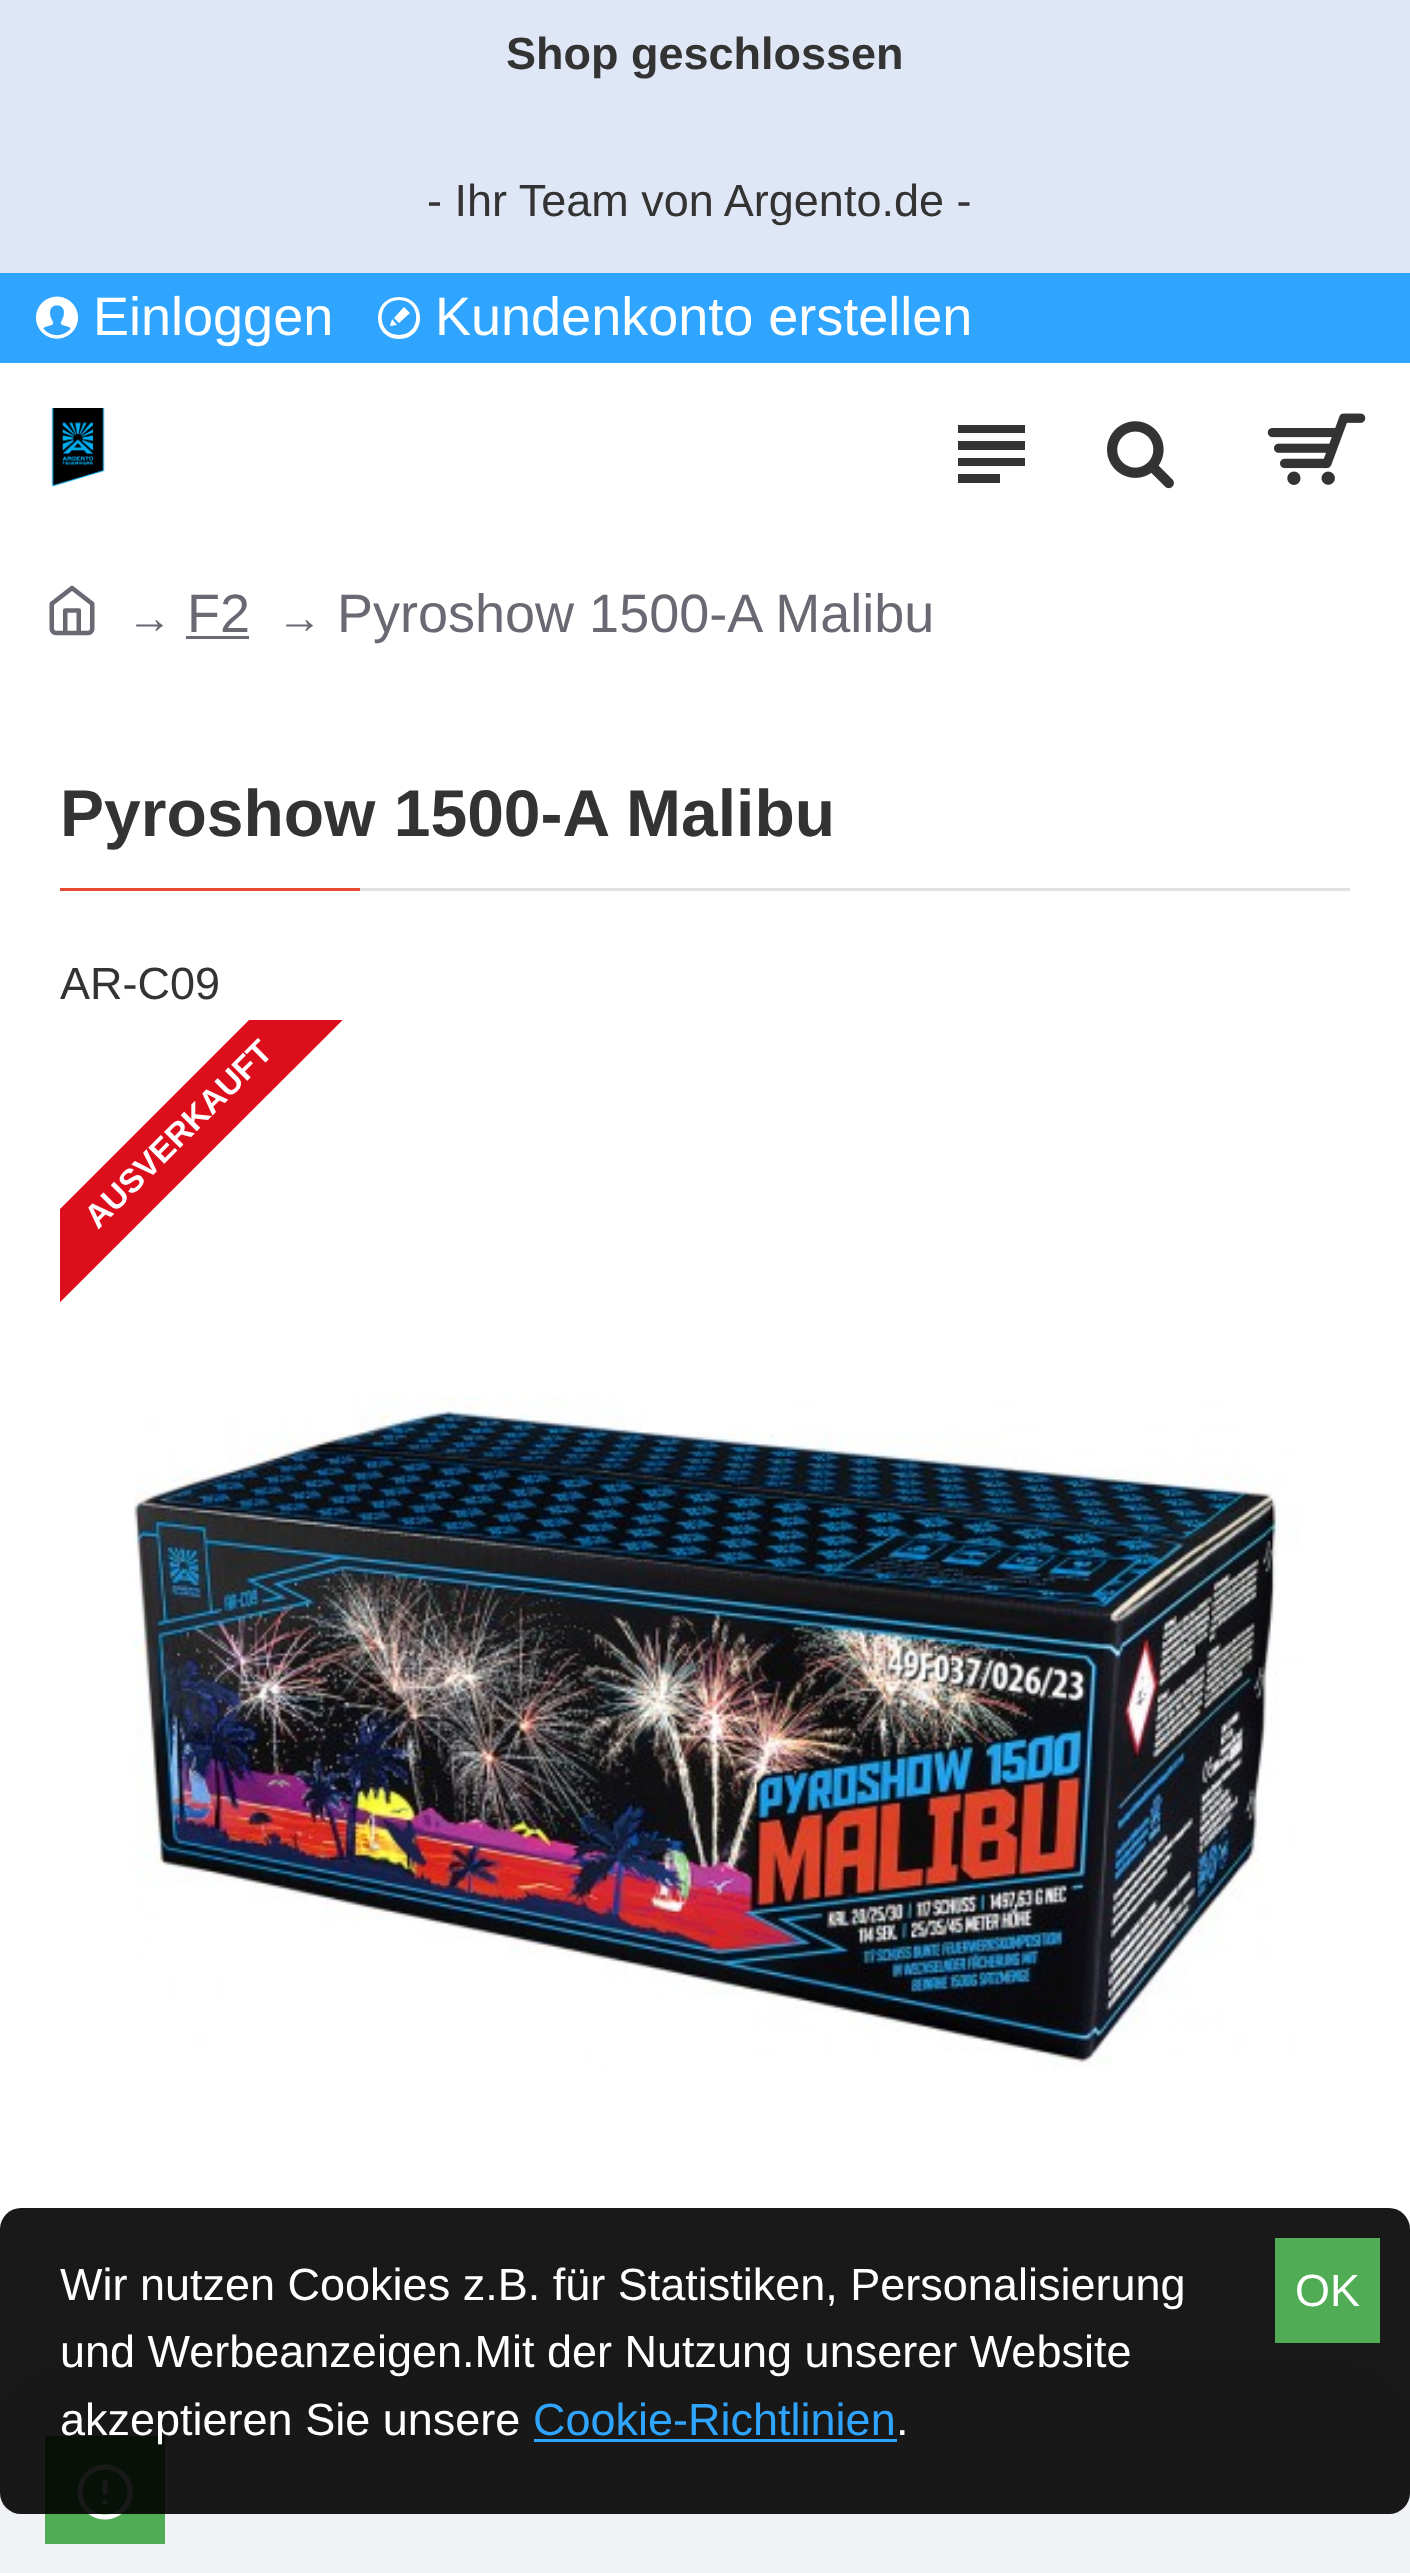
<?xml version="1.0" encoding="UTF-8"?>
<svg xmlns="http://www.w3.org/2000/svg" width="1410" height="2573">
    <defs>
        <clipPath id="clip1"><rect x="60" y="1020" width="1290" height="1290"/></clipPath>
        <filter id="blur1" x="-50%" y="-200%" width="200%" height="500%"><feGaussianBlur stdDeviation="45"/></filter>
    </defs>
    <rect width="100%" height="100%" fill="#FFFFFF"/>
    <rect x="0" y="0" width="1410" height="273" fill="#DFE7F6"/>
    <text x="506" y="69" font-family="Liberation Sans" font-size="45" font-weight="700" fill="#333333">Shop geschlossen</text>
    <text x="427" y="216" font-family="Liberation Sans" font-size="45" fill="#333333">- Ihr Team von Argento.de -</text>
    <rect x="0" y="273" width="1410" height="90" fill="#30A5FF"/>
    <image x="36" y="296" width="42" height="43" href="img_01.png"/>
    <text x="93" y="335" font-family="Liberation Sans" font-size="54" fill="#FFFFFF">Einloggen</text>
    <path d="M 399 300 C 422 300 422 335 399 335 C 376 335 376 300 399 300 Z M 399 297 C 371 297 371 339 399 339 C 427 339 427 297 399 297 Z M 392 319 L 397 325 L 390 326 Z M 410 313 L 399 323 L 394 318 L 404 307 Z" fill="#FFFFFF"/>
    <text x="435" y="335" font-family="Liberation Sans" font-size="54" fill="#FFFFFF">Kundenkonto erstellen</text>
    <image x="51" y="408" width="54" height="79" href="img_02.png"/>
    <path d="M 958 425 H 1025 V 433 H 958 Z M 958 466 V 458 H 1025 V 466 Z M 1025 441 V 450 H 958 V 441 Z M 1000 474 V 483 H 958 V 474 Z" fill="#333333"/>
    <image x="1107" y="421" width="67" height="68" href="img_03.png"/>
    <image x="1267" y="413" width="99" height="72" href="img_04.png"/>
    <image x="49" y="585" width="46" height="51" href="img_05.png"/>
    <text x="127" y="633" font-family="Liberation Sans" font-size="45" fill="#696973">→</text>
    <text x="187" y="632" font-family="Liberation Sans" font-size="54" fill="#696973">F2</text>
    <rect x="186" y="636" width="63" height="3" fill="#696973"/>
    <text x="277" y="633" font-family="Liberation Sans" font-size="45" fill="#696973">→</text>
    <text x="337" y="632" font-family="Liberation Sans" font-size="54" fill="#696973">Pyroshow 1500-A Malibu</text>
    <rect x="360" y="888" width="990" height="3" fill="#E2E2E2"/>
    <text x="60" y="836" font-family="Liberation Sans" font-size="66" font-weight="700" fill="#333333">Pyroshow 1500-A Malibu</text>
    <rect x="60" y="888" width="300" height="3" fill="#E94B31"/>
    <text x="60" y="999" font-family="Liberation Sans" font-size="45" fill="#333333">AR-C09</text>
    <g clip-path="url(#clip1)">
        <path d="M -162 1431 L 475 794 L 522 841 L -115 1477 Z" fill="#DD0E1C"/>
    </g>
    <text x="98" y="1230" transform="rotate(-45 98 1230)" font-family="Liberation Sans" font-size="33" font-weight="700" fill="#FFFFFF">AUSVERKAUFT</text>
    <image x="133" y="1395" width="1166" height="675" href="img_06.png"/>
    <rect x="15" y="2388" width="1380" height="141" fill="#000000" fill-opacity="0.15" filter="url(#blur1)"/>
    <rect x="0" y="2406" width="1410" height="167" fill="#F0F2F5"/>
    <rect x="0" y="2403" width="1410" height="3" fill="#E2E2E2"/>
    <rect x="45" y="2436" width="120" height="108" fill="#50AD55"/>
    <image x="77" y="2464" width="56" height="56" href="img_07.png"/>
    <rect x="0" y="2208" width="1410" height="306" rx="21" fill="#000000" fill-opacity="0.9"/>
    <text font-family="Liberation Sans" font-size="45" fill="#FFFFFF">
        <tspan x="60" y="2300">Wir nutzen Cookies z.B. für Statistiken, Personalisierung</tspan>
        <tspan x="60" y="2367">und Werbeanzeigen.Mit der Nutzung unserer Website</tspan>
        <tspan x="60" y="2435">akzeptieren Sie unsere</tspan>
    </text>
    <text x="533" y="2435" font-family="Liberation Sans" font-size="45" fill="#30A5FF">Cookie-Richtlinien</text>
    <rect x="534" y="2439" width="363" height="3" fill="#30A5FF"/>
    <text x="896" y="2435" font-family="Liberation Sans" font-size="45" fill="#FFFFFF">.</text>
    <rect x="1275" y="2238" width="105" height="105" fill="#50AD55"/>
    <text x="1295" y="2306" font-family="Liberation Sans" font-size="45" fill="#FFFFFF">OK</text>
</svg>
